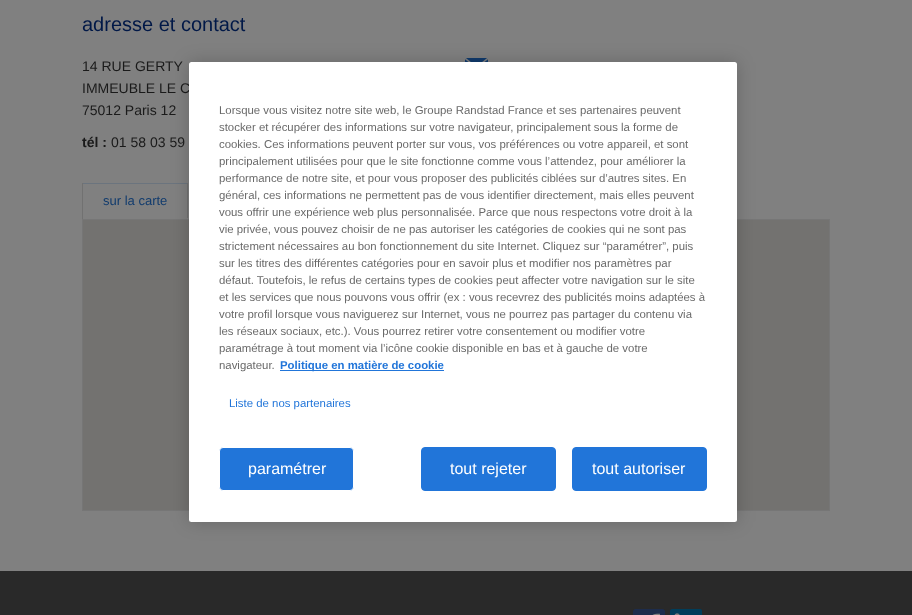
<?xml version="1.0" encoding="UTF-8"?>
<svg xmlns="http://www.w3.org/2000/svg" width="912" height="615">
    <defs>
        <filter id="blur1" x="-50%" y="-200%" width="200%" height="500%"><feGaussianBlur stdDeviation="9"/></filter>
    </defs>
    <rect width="100%" height="100%" fill="#808080"/>
    <text x="82" y="31" font-family="Liberation Sans" font-size="20" fill="#001847">adresse et contact</text>
    <image x="465" y="58" width="23" height="4" href="img_01.png"/>
    <text font-family="Liberation Sans" font-size="14" fill="#1A1A1A">
        <tspan x="82" y="71">14 RUE GERTY</tspan>
        <tspan x="82" y="93">IMMEUBLE LE C</tspan>
        <tspan x="82" y="115">75012 Paris 12</tspan>
    </text>
    <text x="82" y="147" font-family="Liberation Sans" font-size="14" font-weight="700" fill="#1A1A1A">tél :</text>
    <text x="111" y="147" font-family="Liberation Sans" font-size="14" fill="#1A1A1A">01 58 03 59</text>
    <rect x="82" y="183" width="106" height="1" fill="#6B747E"/>
    <rect x="187" y="183" width="1" height="36" fill="#717171"/>
    <rect x="187" y="218" width="1" height="1" fill="#808080"/>
    <rect x="82" y="183" width="1" height="36" fill="#717171"/>
    <text x="103" y="205" font-family="Liberation Sans" font-size="13" fill="#113B6D">sur la carte</text>
    <rect x="82.5" y="219.5" width="747" height="291" fill="none" stroke="#767676"/>
    <rect x="83" y="220" width="746" height="290" fill="#737270"/>
    <rect x="189" y="62" width="548" height="460" rx="2.5" fill="#000000" fill-opacity="0.2" filter="url(#blur1)"/>
    <rect x="189" y="62" width="548" height="460" rx="2.5" fill="#FFFFFF"/>
    <text font-family="Liberation Sans" font-size="11.4" fill="#696969">
        <tspan x="219" y="114">Lorsque vous visitez notre site web, le Groupe Randstad France et ses partenaires peuvent</tspan>
        <tspan x="219" y="131">stocker et récupérer des informations sur votre navigateur, principalement sous la forme de</tspan>
        <tspan x="219" y="148">cookies. Ces informations peuvent porter sur vous, vos préférences ou votre appareil, et sont</tspan>
        <tspan x="219" y="165">principalement utilisées pour que le site fonctionne comme vous l’attendez, pour améliorer la</tspan>
        <tspan x="219" y="182">performance de notre site, et pour vous proposer des publicités ciblées sur d’autres sites. En</tspan>
        <tspan x="219" y="199">général, ces informations ne permettent pas de vous identifier directement, mais elles peuvent</tspan>
        <tspan x="219" y="216">vous offrir une expérience web plus personnalisée. Parce que nous respectons votre droit à la</tspan>
        <tspan x="219" y="233">vie privée, vous pouvez choisir de ne pas autoriser les catégories de cookies qui ne sont pas</tspan>
        <tspan x="219" y="250">strictement nécessaires au bon fonctionnement du site Internet. Cliquez sur “paramétrer”, puis</tspan>
        <tspan x="219" y="267">sur les titres des différentes catégories pour en savoir plus et modifier nos paramètres par</tspan>
        <tspan x="219" y="284">défaut. Toutefois, le refus de certains types de cookies peut affecter votre navigation sur le site</tspan>
        <tspan x="219" y="301">et les services que nous pouvons vous offrir (ex : vous recevrez des publicités moins adaptées à</tspan>
        <tspan x="219" y="318">votre profil lorsque vous naviguerez sur Internet, vous ne pourrez pas partager du contenu via</tspan>
        <tspan x="219" y="335">les réseaux sociaux, etc.). Vous pourrez retirer votre consentement ou modifier votre</tspan>
        <tspan x="219" y="352">paramétrage à tout moment via l’icône cookie disponible en bas et à gauche de votre</tspan>
        <tspan x="219" y="369">navigateur.</tspan>
    </text>
    <rect x="280" y="370" width="164" height="1" fill="#2175D9"/>
    <text x="280" y="369" font-family="Liberation Sans" font-size="11.4" font-weight="700" fill="#2175D9">Politique en matière de cookie</text>
    <text x="229" y="407" font-family="Liberation Sans" font-size="11.4" fill="#2175D9">Liste de nos partenaires</text>
    <rect x="219.5" y="447.5" width="134" height="43" rx="3.5" fill="#2175D9" stroke="#FFFFFF"/>
    <text x="248" y="474" font-family="Liberation Sans" font-size="16" fill="#FFFFFF">paramétrer</text>
    <rect x="421.5" y="447.5" width="134" height="43" rx="3.5" fill="#2175D9" stroke="#2175D9"/>
    <text x="450" y="474" font-family="Liberation Sans" font-size="16" fill="#FFFFFF">tout rejeter</text>
    <rect x="572.5" y="447.5" width="134" height="43" rx="3.5" fill="#2175D9" stroke="#2175D9"/>
    <text x="592" y="474" font-family="Liberation Sans" font-size="16" fill="#FFFFFF">tout autoriser</text>
    <rect x="0" y="571" width="912" height="44" fill="#292929"/>
    <image x="633" y="609" width="32" height="6" href="img_02.png"/>
    <image x="670" y="609" width="32" height="6" href="img_03.png"/>
</svg>
